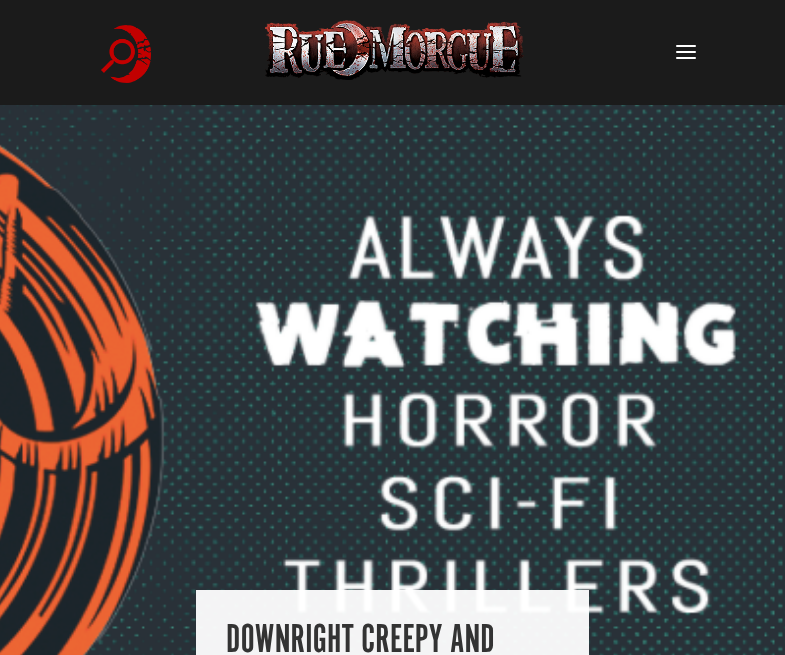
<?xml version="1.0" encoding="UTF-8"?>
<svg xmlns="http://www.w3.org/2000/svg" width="785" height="655">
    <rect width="100%" height="100%" fill="#FFFFFF"/>
    <rect x="0" y="0" width="785" height="105" fill="#1B1B1B"/>
    <image x="265" y="20" width="259" height="60" href="img_01.png"/>
    <image x="101" y="25" width="50" height="58" href="img_02.png"/>
    <image x="676" y="45" width="20" height="14" href="img_03.png"/>
    <image x="0" y="105" width="785" height="550" href="img_04.png"/>
    <rect x="196" y="590" width="393" height="65" fill="#FFFFFF" fill-opacity="0.95"/>
    <text x="226" y="652" font-family="'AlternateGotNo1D'" font-size="42" fill="#333333">DOWNRIGHT CREEPY AND</text>
</svg>
